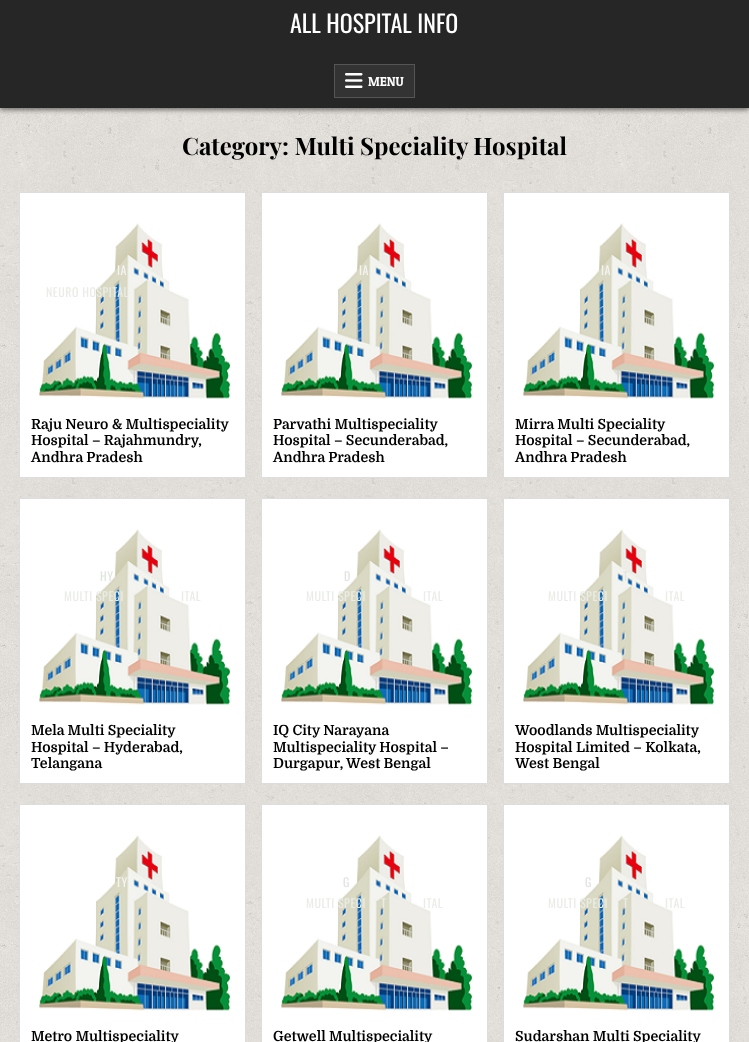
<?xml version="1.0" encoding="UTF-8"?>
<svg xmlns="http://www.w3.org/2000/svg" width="749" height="1042">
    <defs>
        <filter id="blur1" x="-50%" y="-200%" width="200%" height="500%"><feGaussianBlur stdDeviation="2.5"/></filter>
    </defs>
    <rect width="100%" height="100%" fill="#FFFFFF"/>
    <image x="0" y="108" width="749" height="934" href="img_01.png"/>
    <rect x="0" y="2" width="749" height="108" fill="#000000" fill-opacity="0.5" filter="url(#blur1)"/>
    <rect x="0" y="0" width="749" height="108" fill="#262626"/>
    <text x="290" y="33" font-family="Oswald" font-size="24" fill="#FFFFFF">ALL HOSPITAL INFO</text>
    <rect x="334.5" y="64.5" width="80" height="33" fill="#333333" stroke="#555555"/>
    <image x="345" y="73" width="18" height="15" href="img_02.png"/>
    <text x="368" y="86" font-family="Patua One" font-size="13" fill="#FFFFFF">MENU</text>
    <text x="182" y="155" font-family="Playfair Display" font-size="24" font-weight="700" fill="#000000">Category: Multi Speciality Hospital</text>
    <rect x="19.5" y="192.5" width="226" height="285" fill="#FFFFFF" stroke="#DDDDDD"/>
    <image x="39" y="223" width="191" height="176" href="img_03.png"/>
    <text x="117" y="275" font-family="Oswald" font-size="12" letter-spacing="0.5" fill="#F4F4F2">IA</text>
    <text x="46" y="297" font-family="Oswald" font-size="12" letter-spacing="0.5" fill="#EAEDE7">NEURO HOSPITAL</text>
    <text font-family="Domine" font-size="14" font-weight="700" fill="#000000">
        <tspan x="31" y="429">Raju Neuro &amp; Multispeciality</tspan>
        <tspan x="31" y="445">Hospital – Rajahmundry,</tspan>
        <tspan x="31" y="462">Andhra Pradesh</tspan>
    </text>
    <rect x="261.5" y="192.5" width="226" height="285" fill="#FFFFFF" stroke="#DDDDDD"/>
    <image x="281" y="223" width="191" height="176" href="img_03.png"/>
    <text x="359" y="275" font-family="Oswald" font-size="12" letter-spacing="0.5" fill="#F4F4F2">IA</text>
    <text font-family="Domine" font-size="14" font-weight="700" fill="#000000">
        <tspan x="273" y="429">Parvathi Multispeciality</tspan>
        <tspan x="273" y="445">Hospital – Secunderabad,</tspan>
        <tspan x="273" y="462">Andhra Pradesh</tspan>
    </text>
    <rect x="503.5" y="192.5" width="226" height="285" fill="#FFFFFF" stroke="#DDDDDD"/>
    <image x="523" y="223" width="191" height="176" href="img_03.png"/>
    <text x="601" y="275" font-family="Oswald" font-size="12" letter-spacing="0.5" fill="#F4F4F2">IA</text>
    <text font-family="Domine" font-size="14" font-weight="700" fill="#000000">
        <tspan x="515" y="429">Mirra Multi Speciality</tspan>
        <tspan x="515" y="445">Hospital – Secunderabad,</tspan>
        <tspan x="515" y="462">Andhra Pradesh</tspan>
    </text>
    <rect x="19.5" y="498.5" width="226" height="285" fill="#FFFFFF" stroke="#DDDDDD"/>
    <image x="39" y="529" width="191" height="176" href="img_03.png"/>
    <text x="100" y="581" font-family="Oswald" font-size="12" letter-spacing="0.5" fill="#E1E5E0">HY</text>
    <text x="64" y="601" font-family="Oswald" font-size="12" letter-spacing="0.5" fill="#EAEDE7">MULTI SPECI</text>
    <text x="181" y="601" font-family="Oswald" font-size="12" letter-spacing="0.5" fill="#EAEDE7">ITAL</text>
    <text font-family="Domine" font-size="14" font-weight="700" fill="#000000">
        <tspan x="31" y="735">Mela Multi Speciality</tspan>
        <tspan x="31" y="752">Hospital – Hyderabad,</tspan>
        <tspan x="31" y="768">Telangana</tspan>
    </text>
    <rect x="261.5" y="498.5" width="226" height="285" fill="#FFFFFF" stroke="#DDDDDD"/>
    <image x="281" y="529" width="191" height="176" href="img_03.png"/>
    <text x="344" y="581" font-family="Oswald" font-size="12" letter-spacing="0.5" fill="#E1E5E0">D</text>
    <text x="306" y="601" font-family="Oswald" font-size="12" letter-spacing="0.5" fill="#EAEDE7">MULTI SPECI</text>
    <text x="423" y="601" font-family="Oswald" font-size="12" letter-spacing="0.5" fill="#EAEDE7">ITAL</text>
    <text font-family="Domine" font-size="14" font-weight="700" fill="#000000">
        <tspan x="273" y="735">IQ City Narayana</tspan>
        <tspan x="273" y="752">Multispeciality Hospital –</tspan>
        <tspan x="273" y="768">Durgapur, West Bengal</tspan>
    </text>
    <rect x="503.5" y="498.5" width="226" height="285" fill="#FFFFFF" stroke="#DDDDDD"/>
    <image x="523" y="529" width="191" height="176" href="img_03.png"/>
    <text x="623" y="581" font-family="Oswald" font-size="12" letter-spacing="0.5" fill="#E1E5E0">T</text>
    <text x="548" y="601" font-family="Oswald" font-size="12" letter-spacing="0.5" fill="#EAEDE7">MULTI SPECI</text>
    <text x="665" y="601" font-family="Oswald" font-size="12" letter-spacing="0.5" fill="#EAEDE7">ITAL</text>
    <text font-family="Domine" font-size="14" font-weight="700" fill="#000000">
        <tspan x="515" y="735">Woodlands Multispeciality</tspan>
        <tspan x="515" y="752">Hospital Limited – Kolkata,</tspan>
        <tspan x="515" y="768">West Bengal</tspan>
    </text>
    <rect x="19.5" y="804.5" width="226" height="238" fill="#FFFFFF" stroke="#DDDDDD"/>
    <image x="39" y="835" width="191" height="176" href="img_03.png"/>
    <text x="116" y="887" font-family="Oswald" font-size="12" letter-spacing="0.5" fill="#F4F4F2">TY</text>
    <text x="31" y="1041" font-family="Domine" font-size="14" font-weight="700" fill="#000000">Metro Multispeciality</text>
    <rect x="261.5" y="804.5" width="226" height="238" fill="#FFFFFF" stroke="#DDDDDD"/>
    <image x="281" y="835" width="191" height="176" href="img_03.png"/>
    <text x="343" y="887" font-family="Oswald" font-size="12" letter-spacing="0.5" fill="#E1E5E0">G</text>
    <text x="306" y="908" font-family="Oswald" font-size="12" letter-spacing="0.5" fill="#EAEDE7">MULTI SPECI</text>
    <text x="381" y="908" font-family="Oswald" font-size="12" letter-spacing="0.5" fill="#EAEDE7">T</text>
    <text x="423" y="908" font-family="Oswald" font-size="12" letter-spacing="0.5" fill="#EAEDE7">ITAL</text>
    <text x="273" y="1041" font-family="Domine" font-size="14" font-weight="700" fill="#000000">Getwell Multispeciality</text>
    <rect x="503.5" y="804.5" width="226" height="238" fill="#FFFFFF" stroke="#DDDDDD"/>
    <image x="523" y="835" width="191" height="176" href="img_03.png"/>
    <text x="585" y="887" font-family="Oswald" font-size="12" letter-spacing="0.5" fill="#E1E5E0">G</text>
    <text x="548" y="908" font-family="Oswald" font-size="12" letter-spacing="0.5" fill="#EAEDE7">MULTI SPECI</text>
    <text x="623" y="908" font-family="Oswald" font-size="12" letter-spacing="0.5" fill="#EAEDE7">T</text>
    <text x="665" y="908" font-family="Oswald" font-size="12" letter-spacing="0.5" fill="#EAEDE7">ITAL</text>
    <text x="515" y="1041" font-family="Domine" font-size="14" font-weight="700" fill="#000000">Sudarshan Multi Speciality</text>
</svg>
